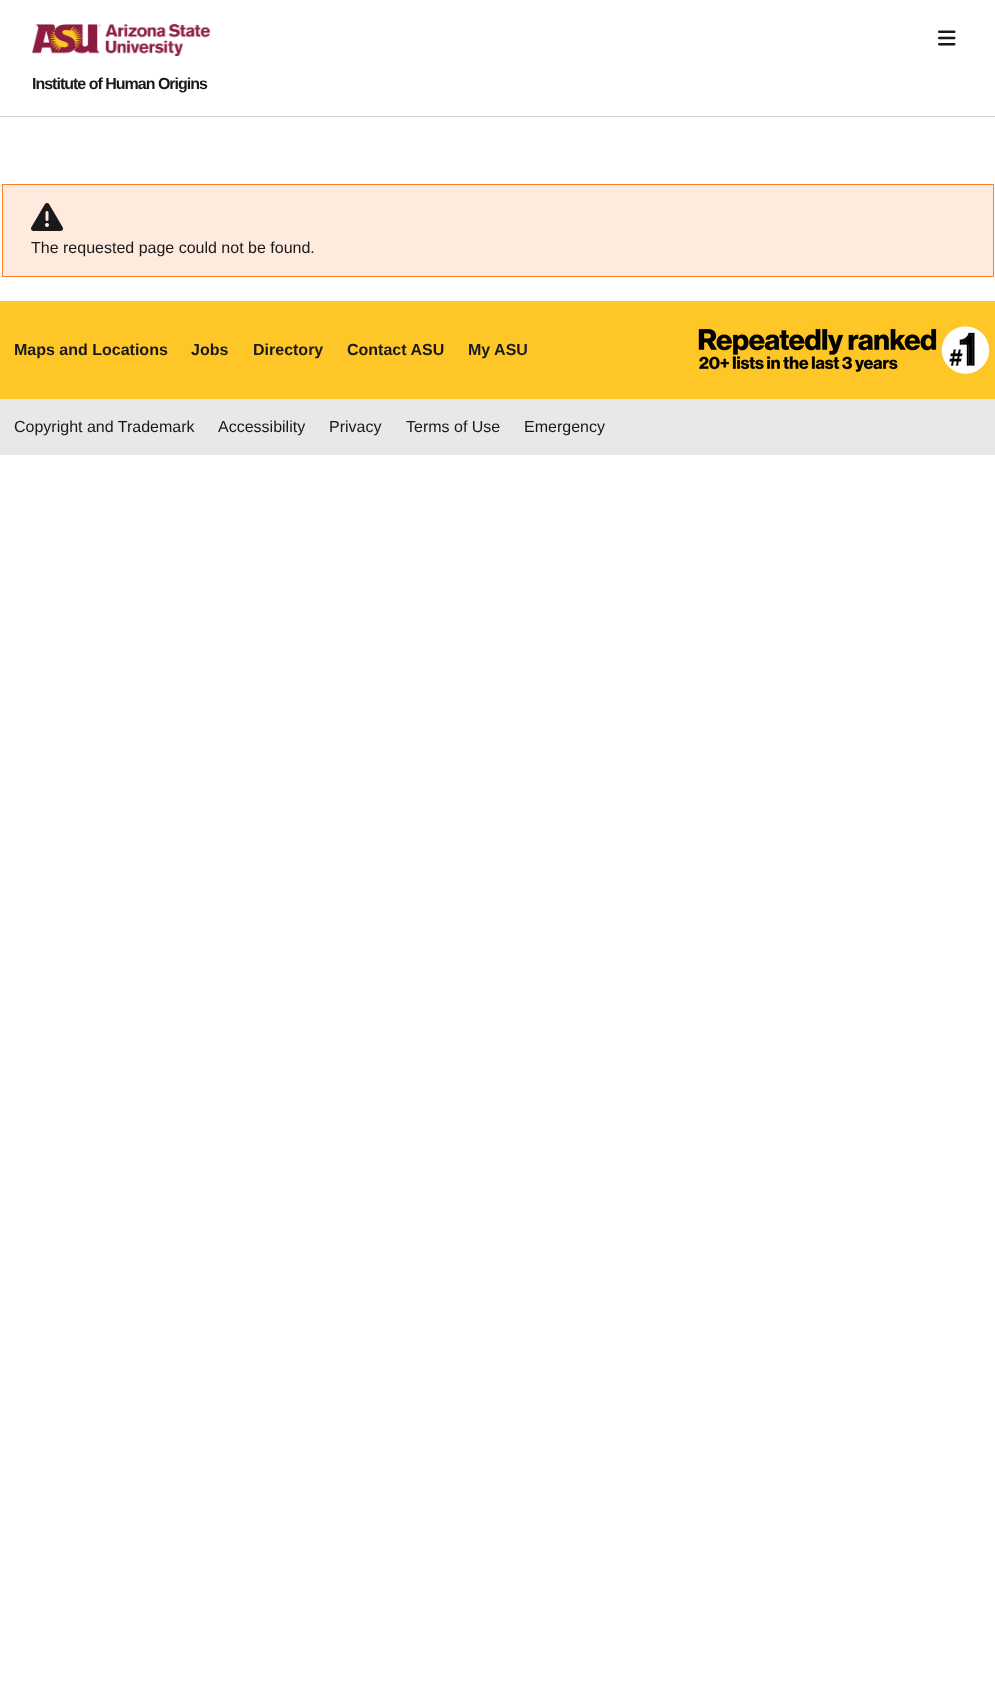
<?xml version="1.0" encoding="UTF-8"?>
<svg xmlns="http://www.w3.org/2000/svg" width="995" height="1691">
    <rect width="100%" height="100%" fill="#FFFFFF"/>
    <rect x="0" y="116" width="995" height="1" fill="#D0D0D0"/>
    <image x="32" y="24" width="178" height="32" href="img_01.png"/>
    <image x="938" y="30" width="18" height="16" href="img_02.png"/>
    <text x="32" y="89" font-family="Liberation Sans" font-size="16" font-weight="700" letter-spacing="-1" fill="#191919">Institute of Human Origins</text>
    <rect x="2.5" y="184.5" width="991" height="92" fill="#FFEADE" stroke="#FF7F32"/>
    <image x="31" y="203" width="32" height="28" href="img_03.png"/>
    <text x="31" y="253" font-family="Liberation Sans" font-size="16" fill="#191919">The requested page could not be found.</text>
    <rect x="0" y="301" width="995" height="98" fill="#FFC627"/>
    <text x="14" y="355" font-family="Liberation Sans" font-size="16" font-weight="700" fill="#191919">Maps and Locations</text>
    <text x="191" y="355" font-family="Liberation Sans" font-size="16" font-weight="700" fill="#191919">Jobs</text>
    <text x="253" y="355" font-family="Liberation Sans" font-size="16" font-weight="700" fill="#191919">Directory</text>
    <text x="347" y="355" font-family="Liberation Sans" font-size="16" font-weight="700" fill="#191919">Contact ASU</text>
    <text x="468" y="355" font-family="Liberation Sans" font-size="16" font-weight="700" fill="#191919">My ASU</text>
    <image x="698" y="326" width="292" height="48" href="img_04.png"/>
    <rect x="0" y="399" width="995" height="56" fill="#E8E8E8"/>
    <text x="14" y="432" font-family="Liberation Sans" font-size="16" fill="#191919">Copyright and Trademark</text>
    <text x="218" y="432" font-family="Liberation Sans" font-size="16" fill="#191919">Accessibility</text>
    <text x="329" y="432" font-family="Liberation Sans" font-size="16" fill="#191919">Privacy</text>
    <text x="406" y="432" font-family="Liberation Sans" font-size="16" fill="#191919">Terms of Use</text>
    <text x="524" y="432" font-family="Liberation Sans" font-size="16" fill="#191919">Emergency</text>
</svg>
